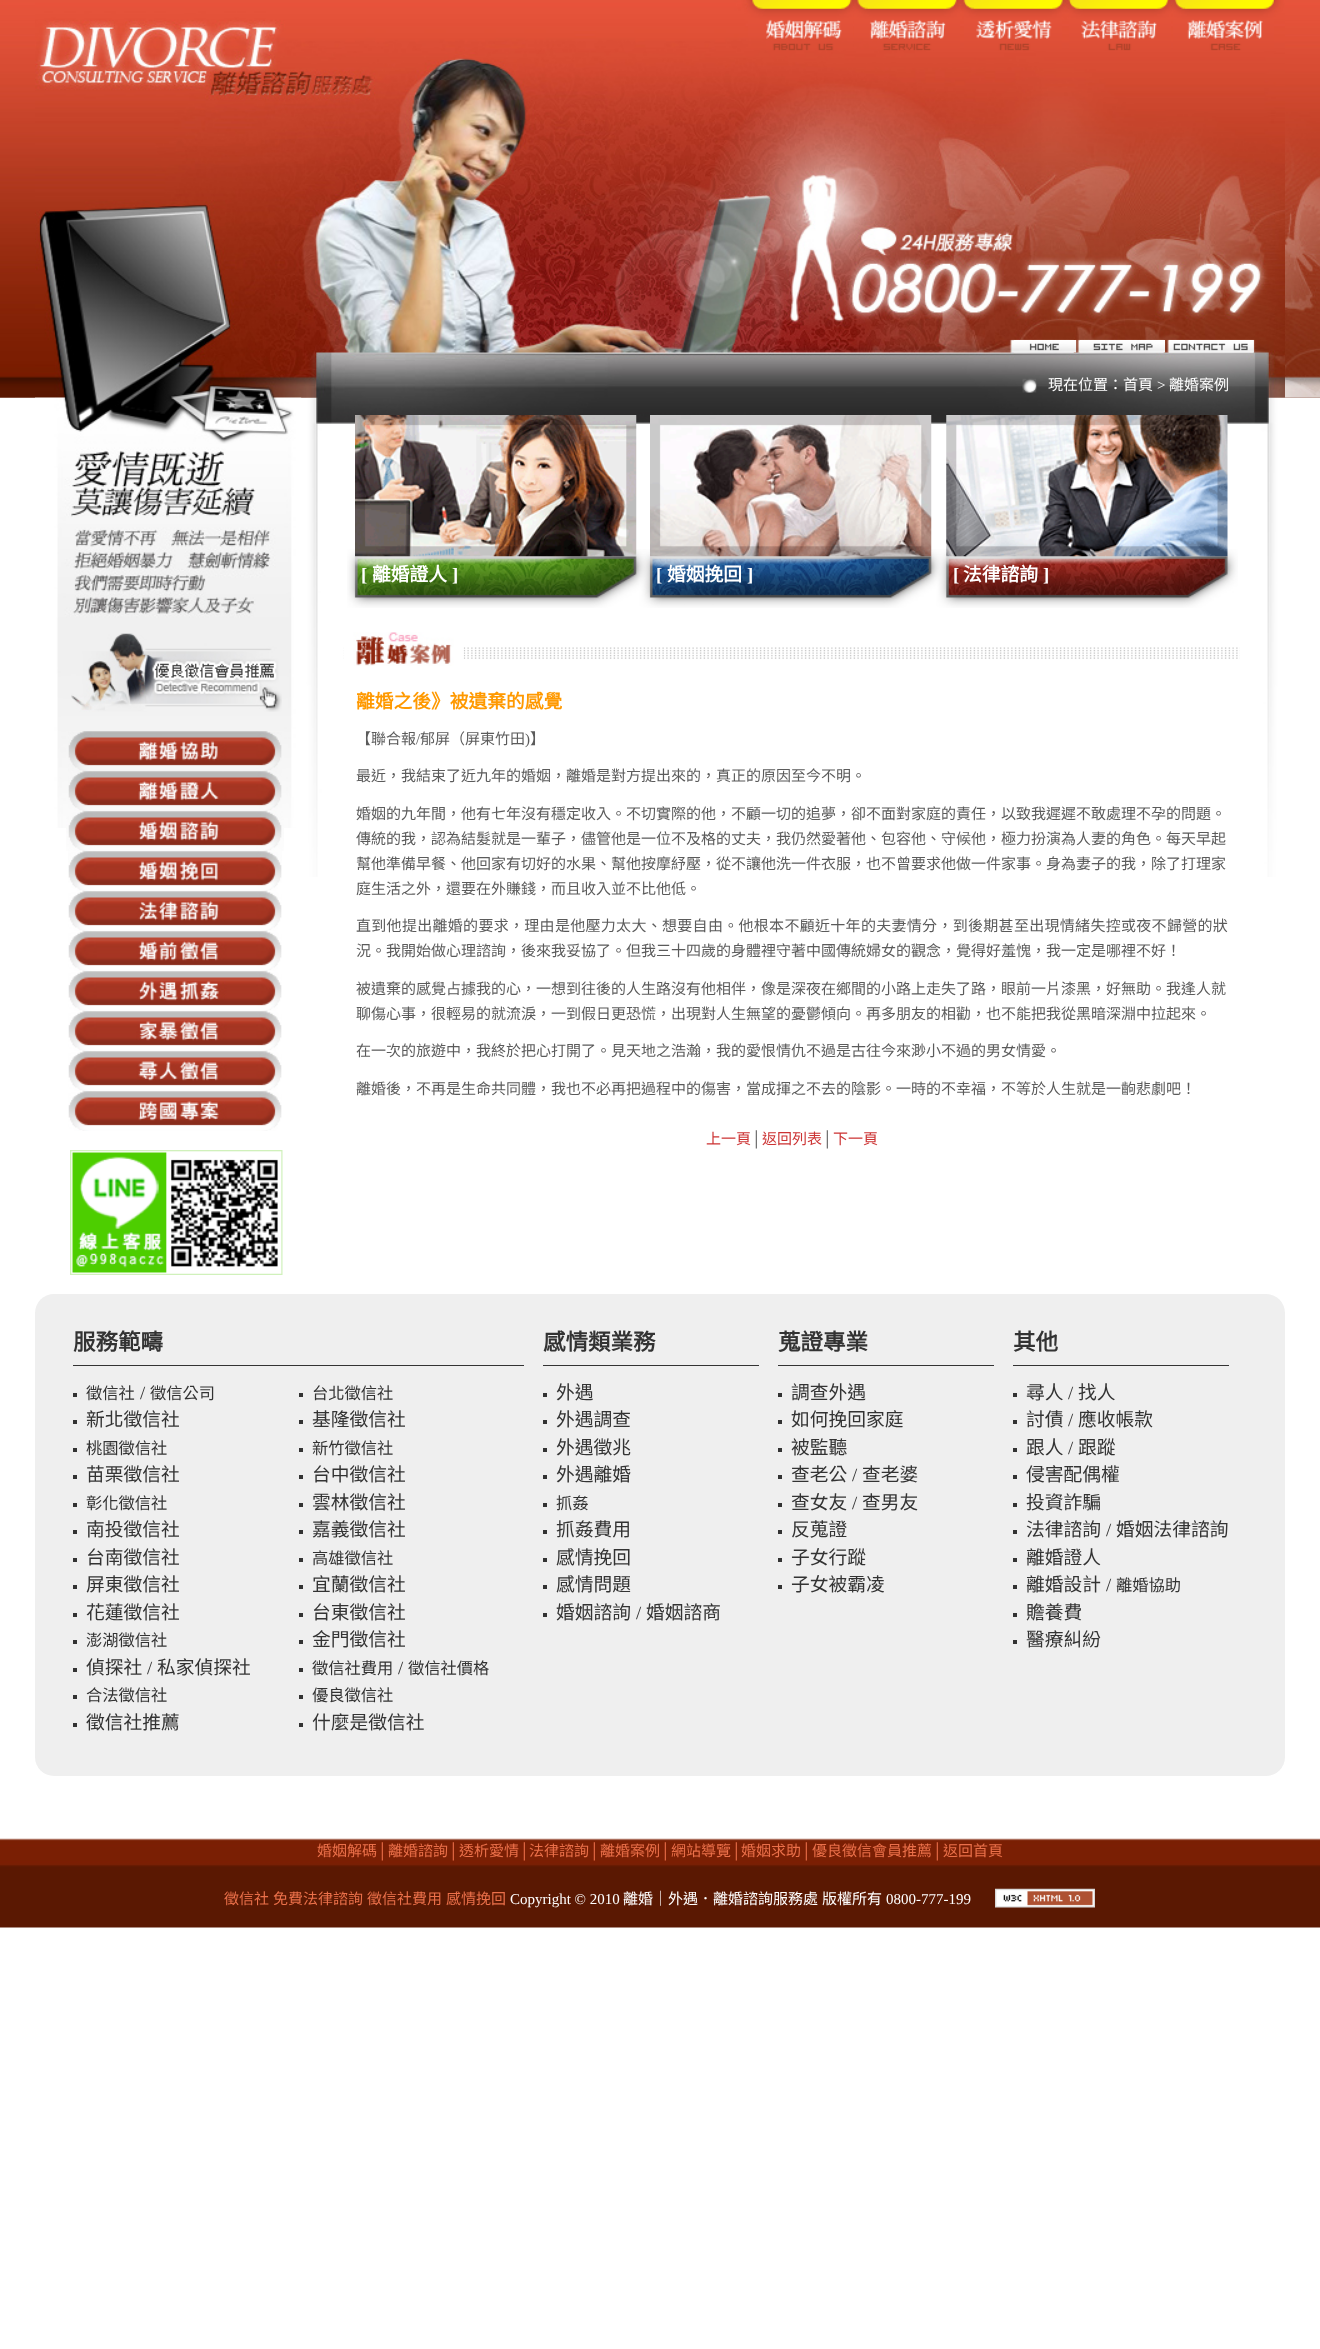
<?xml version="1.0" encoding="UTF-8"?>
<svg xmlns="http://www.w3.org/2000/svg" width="1320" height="2349">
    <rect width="100%" height="100%" fill="#FFFFFF"/>
    <image x="0" y="0" width="1320" height="398" href="img_01.png"/>
    <image x="0" y="1838" width="1320" height="90" href="img_02.png"/>
    <image x="0" y="66" width="1320" height="332" href="img_03.png"/>
    <image x="301" y="397" width="984" height="480" href="img_04.png"/>
    <image x="35" y="397" width="267" height="431" href="img_16.png"/>
    <image x="35" y="0" width="1250" height="398" href="img_05.png"/>
    <image x="748" y="0" width="105" height="50" href="img_06.png"/>
    <image x="854" y="0" width="106" height="50" href="img_07.png"/>
    <image x="964" y="0" width="98" height="50" href="img_08.png"/>
    <image x="1069" y="0" width="102" height="50" href="img_09.png"/>
    <image x="1173" y="0" width="101" height="50" href="img_10.png"/>
    <image x="1013" y="340" width="64" height="13" href="img_11.png"/>
    <image x="1080" y="340" width="85" height="13" href="img_12.png"/>
    <image x="1168" y="340" width="86" height="13" href="img_13.png"/>
    <image x="1022" y="378" width="15" height="15" href="img_14.png"/>
    <text x="1048" y="390" font-family="Noto Sans CJK TC" font-size="15" fill="#FFFFFF">現在位置：首頁</text>
    <text x="1157" y="390" font-family="Liberation Serif" font-size="15" fill="#FFFFFF">&gt;</text>
    <text x="1169" y="390" font-family="Noto Sans CJK TC" font-size="15" fill="#FFFFFF">離婚案例</text>
    <image x="35" y="390" width="267" height="54" href="img_15.png"/>
    <image x="71" y="633" width="211" height="79" href="img_17.png"/>
    <image x="68" y="731" width="214" height="40" href="img_18.png"/>
    <image x="68" y="771" width="214" height="40" href="img_19.png"/>
    <image x="66" y="811" width="218" height="40" href="img_20.png"/>
    <image x="68" y="851" width="214" height="40" href="img_21.png"/>
    <image x="68" y="891" width="214" height="40" href="img_22.png"/>
    <image x="68" y="931" width="214" height="40" href="img_23.png"/>
    <image x="68" y="971" width="214" height="40" href="img_24.png"/>
    <image x="68" y="1011" width="214" height="40" href="img_25.png"/>
    <image x="68" y="1051" width="214" height="40" href="img_26.png"/>
    <image x="68" y="1091" width="214" height="40" href="img_27.png"/>
    <image x="70" y="1150" width="213" height="125" href="img_28.png"/>
    <image x="347" y="549" width="891" height="59" href="img_29.png"/>
    <image x="355" y="415" width="282" height="142" href="img_30.png"/>
    <text x="361" y="581" font-family="Liberation Serif" font-size="18.75" font-weight="700" fill="#FFFFFF">[</text>
    <text x="372" y="581" font-family="Noto Sans CJK TC" font-size="18.75" font-weight="700" fill="#FFFFFF">離婚證人</text>
    <text x="452" y="581" font-family="Liberation Serif" font-size="18.75" font-weight="700" fill="#FFFFFF">]</text>
    <image x="650" y="415" width="282" height="142" href="img_31.png"/>
    <text x="656" y="581" font-family="Liberation Serif" font-size="18.75" font-weight="700" fill="#FFFFFF">[</text>
    <text x="667" y="581" font-family="Noto Sans CJK TC" font-size="18.75" font-weight="700" fill="#FFFFFF">婚姻挽回</text>
    <text x="747" y="581" font-family="Liberation Serif" font-size="18.75" font-weight="700" fill="#FFFFFF">]</text>
    <image x="946" y="415" width="282" height="142" href="img_32.png"/>
    <text x="953" y="581" font-family="Liberation Serif" font-size="18.75" font-weight="700" fill="#FFFFFF">[</text>
    <text x="963" y="581" font-family="Noto Sans CJK TC" font-size="18.75" font-weight="700" fill="#FFFFFF">法律諮詢</text>
    <text x="1043" y="581" font-family="Liberation Serif" font-size="18.75" font-weight="700" fill="#FFFFFF">]</text>
    <image x="343" y="647" width="897" height="12" href="img_33.png"/>
    <image x="344" y="632" width="120" height="34" href="img_34.png"/>
    <text x="356" y="708" font-family="Noto Sans CJK TC" font-size="18.75" font-weight="700" fill="#FF9900">離婚之後》被遺棄的感覺</text>
    <text x="356" y="744" font-family="Noto Sans CJK TC" font-size="15" fill="#5B5B5B">【聯合報</text>
    <text x="416" y="744" font-family="Liberation Serif" font-size="15" fill="#5B5B5B">/</text>
    <text x="420" y="744" font-family="Noto Sans CJK TC" font-size="15" fill="#5B5B5B">郁屏（屏東竹田</text>
    <text x="525" y="744" font-family="Liberation Serif" font-size="15" fill="#5B5B5B">)</text>
    <text x="530" y="744" font-family="Noto Sans CJK TC" font-size="15" fill="#5B5B5B">】</text>
    <text x="356" y="781" font-family="Noto Sans CJK TC" font-size="15" fill="#5B5B5B">最近，我結束了近九年的婚姻，離婚是對方提出來的，真正的原因至今不明。</text>
    <text font-family="Noto Sans CJK TC" font-size="15" fill="#5B5B5B">
        <tspan x="356" y="819">婚姻的九年間，他有七年沒有穩定收入。不切實際的他，不顧一切的追夢，卻不面對家庭的責任，以致我遲遲不敢處理不孕的問題。</tspan>
        <tspan x="356" y="844">傳統的我，認為結髮就是一輩子，儘管他是一位不及格的丈夫，我仍然愛著他、包容他、守候他，極力扮演為人妻的角色。每天早起</tspan>
        <tspan x="356" y="869">幫他準備早餐、他回家有切好的水果、幫他按摩紓壓，從不讓他洗一件衣服，也不曾要求他做一件家事。身為妻子的我，除了打理家</tspan>
        <tspan x="356" y="894">庭生活之外，還要在外賺錢，而且收入並不比他低。</tspan>
    </text>
    <text x="356" y="931" font-family="Noto Sans CJK TC" font-size="15" letter-spacing="0.3" fill="#5B5B5B">直到他提出離婚的要求，理由是他壓力太大、想要自由。他根本不顧近十年的夫妻情分，到後期甚至出現情緒失控或夜不歸營的狀</text>
    <text x="356" y="956" font-family="Noto Sans CJK TC" font-size="15" fill="#5B5B5B">況。我開始做心理諮詢，後來我妥協了。但我三十四歲的身體裡守著中國傳統婦女的觀念，覺得好羞愧，我一定是哪裡不好！</text>
    <text font-family="Noto Sans CJK TC" font-size="15" fill="#5B5B5B">
        <tspan x="356" y="994">被遺棄的感覺占據我的心，一想到往後的人生路沒有他相伴，像是深夜在鄉間的小路上走失了路，眼前一片漆黑，好無助。我逢人就</tspan>
        <tspan x="356" y="1019">聊傷心事，很輕易的就流淚，一到假日更恐慌，出現對人生無望的憂鬱傾向。再多朋友的相勸，也不能把我從黑暗深淵中拉起來。</tspan>
    </text>
    <text x="356" y="1056" font-family="Noto Sans CJK TC" font-size="15" fill="#5B5B5B">在一次的旅遊中，我終於把心打開了。見天地之浩瀚，我的愛恨情仇不過是古往今來渺小不過的男女情愛。</text>
    <text x="356" y="1094" font-family="Noto Sans CJK TC" font-size="15" fill="#5B5B5B">離婚後，不再是生命共同體，我也不必再把過程中的傷害，當成揮之不去的陰影。一時的不幸福，不等於人生就是一齣悲劇吧！</text>
    <text x="706" y="1144" font-family="Noto Sans CJK TC" font-size="15" fill="#CC3333">上一頁</text>
    <text x="751" y="1144" font-family="Liberation Serif" font-size="15" fill="#5B5B5B">│</text>
    <text x="762" y="1144" font-family="Noto Sans CJK TC" font-size="15" fill="#CC3333">返回列表</text>
    <text x="822" y="1144" font-family="Liberation Serif" font-size="15" fill="#5B5B5B">│</text>
    <text x="833" y="1144" font-family="Noto Sans CJK TC" font-size="15" fill="#CC3333">下一頁</text>
    <rect x="35" y="1294" width="1250" height="482" rx="19" fill="#EFEFEF"/>
    <rect x="73" y="1365" width="451" height="1" fill="#333333"/>
    <text x="73" y="1350" font-family="Noto Sans CJK TC" font-size="22.5" font-weight="700" fill="#333333">服務範疇</text>
    <rect x="73" y="1393" width="4" height="4" fill="#333333"/>
    <text x="86" y="1399" font-family="Noto Sans CJK TC" font-size="16.25" fill="#333333">徵信社</text>
    <text x="140" y="1399" font-family="Liberation Serif" font-size="18.75" fill="#333333">/</text>
    <text x="150" y="1399" font-family="Noto Sans CJK TC" font-size="16.25" fill="#333333">徵信公司</text>
    <rect x="299" y="1393" width="4" height="4" fill="#333333"/>
    <text x="312" y="1399" font-family="Noto Sans CJK TC" font-size="16.25" fill="#333333">台北徵信社</text>
    <rect x="73" y="1420" width="4" height="4" fill="#333333"/>
    <text x="86" y="1426" font-family="Noto Sans CJK TC" font-size="18.75" fill="#333333">新北徵信社</text>
    <rect x="299" y="1420" width="4" height="4" fill="#333333"/>
    <text x="312" y="1426" font-family="Noto Sans CJK TC" font-size="18.75" fill="#333333">基隆徵信社</text>
    <rect x="73" y="1448" width="4" height="4" fill="#333333"/>
    <text x="86" y="1454" font-family="Noto Sans CJK TC" font-size="16.25" fill="#333333">桃園徵信社</text>
    <rect x="299" y="1448" width="4" height="4" fill="#333333"/>
    <text x="312" y="1454" font-family="Noto Sans CJK TC" font-size="16.25" fill="#333333">新竹徵信社</text>
    <rect x="73" y="1475" width="4" height="4" fill="#333333"/>
    <text x="86" y="1481" font-family="Noto Sans CJK TC" font-size="18.75" fill="#333333">苗栗徵信社</text>
    <rect x="299" y="1475" width="4" height="4" fill="#333333"/>
    <text x="312" y="1481" font-family="Noto Sans CJK TC" font-size="18.75" fill="#333333">台中徵信社</text>
    <rect x="73" y="1503" width="4" height="4" fill="#333333"/>
    <text x="86" y="1509" font-family="Noto Sans CJK TC" font-size="16.25" fill="#333333">彰化徵信社</text>
    <rect x="299" y="1503" width="4" height="4" fill="#333333"/>
    <text x="312" y="1509" font-family="Noto Sans CJK TC" font-size="18.75" fill="#333333">雲林徵信社</text>
    <rect x="73" y="1530" width="4" height="4" fill="#333333"/>
    <text x="86" y="1536" font-family="Noto Sans CJK TC" font-size="18.75" fill="#333333">南投徵信社</text>
    <rect x="299" y="1530" width="4" height="4" fill="#333333"/>
    <text x="312" y="1536" font-family="Noto Sans CJK TC" font-size="18.75" fill="#333333">嘉義徵信社</text>
    <rect x="73" y="1558" width="4" height="4" fill="#333333"/>
    <text x="86" y="1564" font-family="Noto Sans CJK TC" font-size="18.75" fill="#333333">台南徵信社</text>
    <rect x="299" y="1558" width="4" height="4" fill="#333333"/>
    <text x="312" y="1564" font-family="Noto Sans CJK TC" font-size="16.25" fill="#333333">高雄徵信社</text>
    <rect x="73" y="1585" width="4" height="4" fill="#333333"/>
    <text x="86" y="1591" font-family="Noto Sans CJK TC" font-size="18.75" fill="#333333">屏東徵信社</text>
    <rect x="299" y="1585" width="4" height="4" fill="#333333"/>
    <text x="312" y="1591" font-family="Noto Sans CJK TC" font-size="18.75" fill="#333333">宜蘭徵信社</text>
    <rect x="73" y="1613" width="4" height="4" fill="#333333"/>
    <text x="86" y="1619" font-family="Noto Sans CJK TC" font-size="18.75" fill="#333333">花蓮徵信社</text>
    <rect x="299" y="1613" width="4" height="4" fill="#333333"/>
    <text x="312" y="1619" font-family="Noto Sans CJK TC" font-size="18.75" fill="#333333">台東徵信社</text>
    <rect x="73" y="1640" width="4" height="4" fill="#333333"/>
    <text x="86" y="1646" font-family="Noto Sans CJK TC" font-size="16.25" fill="#333333">澎湖徵信社</text>
    <rect x="299" y="1640" width="4" height="4" fill="#333333"/>
    <text x="312" y="1646" font-family="Noto Sans CJK TC" font-size="18.75" fill="#333333">金門徵信社</text>
    <rect x="73" y="1668" width="4" height="4" fill="#333333"/>
    <text x="86" y="1674" font-family="Noto Sans CJK TC" font-size="18.75" fill="#333333">偵探社</text>
    <text x="147" y="1674" font-family="Liberation Serif" font-size="18.75" fill="#333333">/</text>
    <text x="157" y="1674" font-family="Noto Sans CJK TC" font-size="18.75" fill="#333333">私家偵探社</text>
    <rect x="299" y="1668" width="4" height="4" fill="#333333"/>
    <text x="312" y="1674" font-family="Noto Sans CJK TC" font-size="16.25" fill="#333333">徵信社費用</text>
    <text x="398" y="1674" font-family="Liberation Serif" font-size="18.75" fill="#333333">/</text>
    <text x="408" y="1674" font-family="Noto Sans CJK TC" font-size="16.25" fill="#333333">徵信社價格</text>
    <rect x="73" y="1695" width="4" height="4" fill="#333333"/>
    <text x="86" y="1701" font-family="Noto Sans CJK TC" font-size="16.25" fill="#333333">合法徵信社</text>
    <rect x="299" y="1695" width="4" height="4" fill="#333333"/>
    <text x="312" y="1701" font-family="Noto Sans CJK TC" font-size="16.25" fill="#333333">優良徵信社</text>
    <rect x="73" y="1723" width="4" height="4" fill="#333333"/>
    <text x="86" y="1729" font-family="Noto Sans CJK TC" font-size="18.75" fill="#333333">徵信社推薦</text>
    <rect x="299" y="1723" width="4" height="4" fill="#333333"/>
    <text x="312" y="1729" font-family="Noto Sans CJK TC" font-size="18.75" fill="#333333">什麼是徵信社</text>
    <rect x="543" y="1365" width="216" height="1" fill="#333333"/>
    <text x="543" y="1350" font-family="Noto Sans CJK TC" font-size="22.5" font-weight="700" fill="#333333">感情類業務</text>
    <rect x="543" y="1393" width="4" height="4" fill="#333333"/>
    <text x="556" y="1399" font-family="Noto Sans CJK TC" font-size="18.75" fill="#333333">外遇</text>
    <rect x="543" y="1420" width="4" height="4" fill="#333333"/>
    <text x="556" y="1426" font-family="Noto Sans CJK TC" font-size="18.75" fill="#333333">外遇調查</text>
    <rect x="543" y="1448" width="4" height="4" fill="#333333"/>
    <text x="556" y="1454" font-family="Noto Sans CJK TC" font-size="18.75" fill="#333333">外遇徵兆</text>
    <rect x="543" y="1475" width="4" height="4" fill="#333333"/>
    <text x="556" y="1481" font-family="Noto Sans CJK TC" font-size="18.75" fill="#333333">外遇離婚</text>
    <rect x="543" y="1503" width="4" height="4" fill="#333333"/>
    <text x="556" y="1509" font-family="Noto Sans CJK TC" font-size="16.25" fill="#333333">抓姦</text>
    <rect x="543" y="1530" width="4" height="4" fill="#333333"/>
    <text x="556" y="1536" font-family="Noto Sans CJK TC" font-size="18.75" fill="#333333">抓姦費用</text>
    <rect x="543" y="1558" width="4" height="4" fill="#333333"/>
    <text x="556" y="1564" font-family="Noto Sans CJK TC" font-size="18.75" fill="#333333">感情挽回</text>
    <rect x="543" y="1585" width="4" height="4" fill="#333333"/>
    <text x="556" y="1591" font-family="Noto Sans CJK TC" font-size="18.75" fill="#333333">感情問題</text>
    <rect x="543" y="1613" width="4" height="4" fill="#333333"/>
    <text x="556" y="1619" font-family="Noto Sans CJK TC" font-size="18.75" fill="#333333">婚姻諮詢</text>
    <text x="636" y="1619" font-family="Liberation Serif" font-size="18.75" fill="#333333">/</text>
    <text x="646" y="1619" font-family="Noto Sans CJK TC" font-size="18.75" fill="#333333">婚姻諮商</text>
    <rect x="778" y="1365" width="216" height="1" fill="#333333"/>
    <text x="778" y="1350" font-family="Noto Sans CJK TC" font-size="22.5" font-weight="700" fill="#333333">蒐證專業</text>
    <rect x="778" y="1393" width="4" height="4" fill="#333333"/>
    <text x="791" y="1399" font-family="Noto Sans CJK TC" font-size="18.75" fill="#333333">調查外遇</text>
    <rect x="778" y="1420" width="4" height="4" fill="#333333"/>
    <text x="791" y="1426" font-family="Noto Sans CJK TC" font-size="18.75" fill="#333333">如何挽回家庭</text>
    <rect x="778" y="1448" width="4" height="4" fill="#333333"/>
    <text x="791" y="1454" font-family="Noto Sans CJK TC" font-size="18.75" fill="#333333">被監聽</text>
    <rect x="778" y="1475" width="4" height="4" fill="#333333"/>
    <text x="791" y="1481" font-family="Noto Sans CJK TC" font-size="18.75" fill="#333333">查老公</text>
    <text x="852" y="1481" font-family="Liberation Serif" font-size="18.75" fill="#333333">/</text>
    <text x="862" y="1481" font-family="Noto Sans CJK TC" font-size="18.75" fill="#333333">查老婆</text>
    <rect x="778" y="1503" width="4" height="4" fill="#333333"/>
    <text x="791" y="1509" font-family="Noto Sans CJK TC" font-size="18.75" fill="#333333">查女友</text>
    <text x="852" y="1509" font-family="Liberation Serif" font-size="18.75" fill="#333333">/</text>
    <text x="862" y="1509" font-family="Noto Sans CJK TC" font-size="18.75" fill="#333333">查男友</text>
    <rect x="778" y="1530" width="4" height="4" fill="#333333"/>
    <text x="791" y="1536" font-family="Noto Sans CJK TC" font-size="18.75" fill="#333333">反蒐證</text>
    <rect x="778" y="1558" width="4" height="4" fill="#333333"/>
    <text x="791" y="1564" font-family="Noto Sans CJK TC" font-size="18.75" fill="#333333">子女行蹤</text>
    <rect x="778" y="1585" width="4" height="4" fill="#333333"/>
    <text x="791" y="1591" font-family="Noto Sans CJK TC" font-size="18.75" fill="#333333">子女被霸凌</text>
    <rect x="1013" y="1365" width="216" height="1" fill="#333333"/>
    <text x="1013" y="1350" font-family="Noto Sans CJK TC" font-size="22.5" font-weight="700" fill="#333333">其他</text>
    <rect x="1013" y="1393" width="4" height="4" fill="#333333"/>
    <text x="1026" y="1399" font-family="Noto Sans CJK TC" font-size="18.75" fill="#333333">尋人</text>
    <text x="1068" y="1399" font-family="Liberation Serif" font-size="18.75" fill="#333333">/</text>
    <text x="1078" y="1399" font-family="Noto Sans CJK TC" font-size="18.75" fill="#333333">找人</text>
    <rect x="1013" y="1420" width="4" height="4" fill="#333333"/>
    <text x="1026" y="1426" font-family="Noto Sans CJK TC" font-size="18.75" fill="#333333">討債</text>
    <text x="1068" y="1426" font-family="Liberation Serif" font-size="18.75" fill="#333333">/</text>
    <text x="1078" y="1426" font-family="Noto Sans CJK TC" font-size="18.75" fill="#333333">應收帳款</text>
    <rect x="1013" y="1448" width="4" height="4" fill="#333333"/>
    <text x="1026" y="1454" font-family="Noto Sans CJK TC" font-size="18.75" fill="#333333">跟人</text>
    <text x="1068" y="1454" font-family="Liberation Serif" font-size="18.75" fill="#333333">/</text>
    <text x="1078" y="1454" font-family="Noto Sans CJK TC" font-size="18.75" fill="#333333">跟蹤</text>
    <rect x="1013" y="1475" width="4" height="4" fill="#333333"/>
    <text x="1026" y="1481" font-family="Noto Sans CJK TC" font-size="18.75" fill="#333333">侵害配偶權</text>
    <rect x="1013" y="1503" width="4" height="4" fill="#333333"/>
    <text x="1026" y="1509" font-family="Noto Sans CJK TC" font-size="18.75" fill="#333333">投資詐騙</text>
    <rect x="1013" y="1530" width="4" height="4" fill="#333333"/>
    <text x="1026" y="1536" font-family="Noto Sans CJK TC" font-size="18.75" fill="#333333">法律諮詢</text>
    <text x="1106" y="1536" font-family="Liberation Serif" font-size="18.75" fill="#333333">/</text>
    <text x="1116" y="1536" font-family="Noto Sans CJK TC" font-size="18.75" fill="#333333">婚姻法律諮詢</text>
    <rect x="1013" y="1558" width="4" height="4" fill="#333333"/>
    <text x="1026" y="1564" font-family="Noto Sans CJK TC" font-size="18.75" fill="#333333">離婚證人</text>
    <rect x="1013" y="1585" width="4" height="4" fill="#333333"/>
    <text x="1026" y="1591" font-family="Noto Sans CJK TC" font-size="18.75" fill="#333333">離婚設計</text>
    <text x="1106" y="1591" font-family="Liberation Serif" font-size="18.75" fill="#333333">/</text>
    <text x="1116" y="1591" font-family="Noto Sans CJK TC" font-size="16.25" fill="#333333">離婚協助</text>
    <rect x="1013" y="1613" width="4" height="4" fill="#333333"/>
    <text x="1026" y="1619" font-family="Noto Sans CJK TC" font-size="18.75" fill="#333333">贍養費</text>
    <rect x="1013" y="1640" width="4" height="4" fill="#333333"/>
    <text x="1026" y="1646" font-family="Noto Sans CJK TC" font-size="18.75" fill="#333333">醫療糾紛</text>
    <text x="317" y="1856" font-family="Noto Sans CJK TC" font-size="15" fill="#EB704A">婚姻解碼</text>
    <text x="377" y="1856" font-family="Liberation Serif" font-size="15" fill="#EB704A">│</text>
    <text x="388" y="1856" font-family="Noto Sans CJK TC" font-size="15" fill="#EB704A">離婚諮詢</text>
    <text x="448" y="1856" font-family="Liberation Serif" font-size="15" fill="#EB704A">│</text>
    <text x="459" y="1856" font-family="Noto Sans CJK TC" font-size="15" fill="#EB704A">透析愛情</text>
    <text x="519" y="1856" font-family="Liberation Serif" font-size="15" fill="#EB704A">│</text>
    <text x="529" y="1856" font-family="Noto Sans CJK TC" font-size="15" fill="#EB704A">法律諮詢</text>
    <text x="589" y="1856" font-family="Liberation Serif" font-size="15" fill="#EB704A">│</text>
    <text x="600" y="1856" font-family="Noto Sans CJK TC" font-size="15" fill="#EB704A">離婚案例</text>
    <text x="660" y="1856" font-family="Liberation Serif" font-size="15" fill="#EB704A">│</text>
    <text x="671" y="1856" font-family="Noto Sans CJK TC" font-size="15" fill="#EB704A">網站導覽</text>
    <text x="731" y="1856" font-family="Liberation Serif" font-size="15" fill="#EB704A">│</text>
    <text x="741" y="1856" font-family="Noto Sans CJK TC" font-size="15" fill="#EB704A">婚姻求助</text>
    <text x="801" y="1856" font-family="Liberation Serif" font-size="15" fill="#EB704A">│</text>
    <text x="812" y="1856" font-family="Noto Sans CJK TC" font-size="15" fill="#EB704A">優良徵信會員推薦</text>
    <text x="932" y="1856" font-family="Liberation Serif" font-size="15" fill="#EB704A">│</text>
    <text x="943" y="1856" font-family="Noto Sans CJK TC" font-size="15" fill="#EB704A">返回首頁</text>
    <text x="224" y="1904" font-family="Noto Sans CJK TC" font-size="15" fill="#EB704A">徵信社</text>
    <text x="273" y="1904" font-family="Noto Sans CJK TC" font-size="15" fill="#EB704A">免費法律諮詢</text>
    <text x="367" y="1904" font-family="Noto Sans CJK TC" font-size="15" fill="#EB704A">徵信社費用</text>
    <text x="446" y="1904" font-family="Noto Sans CJK TC" font-size="15" fill="#EB704A">感情挽回</text>
    <text x="510" y="1904" font-family="Liberation Serif" font-size="15" fill="#FFFFFF">Copyright © 2010</text>
    <text x="623" y="1904" font-family="Noto Sans CJK TC" font-size="15" fill="#FFFFFF">離婚｜外遇．離婚諮詢服務處</text>
    <text x="822" y="1904" font-family="Noto Sans CJK TC" font-size="15" fill="#FFFFFF">版權所有</text>
    <text x="886" y="1904" font-family="Liberation Serif" font-size="15" fill="#FFFFFF">0800-777-199</text>
    <image x="995" y="1888" width="100" height="20" href="img_35.png"/>
</svg>
